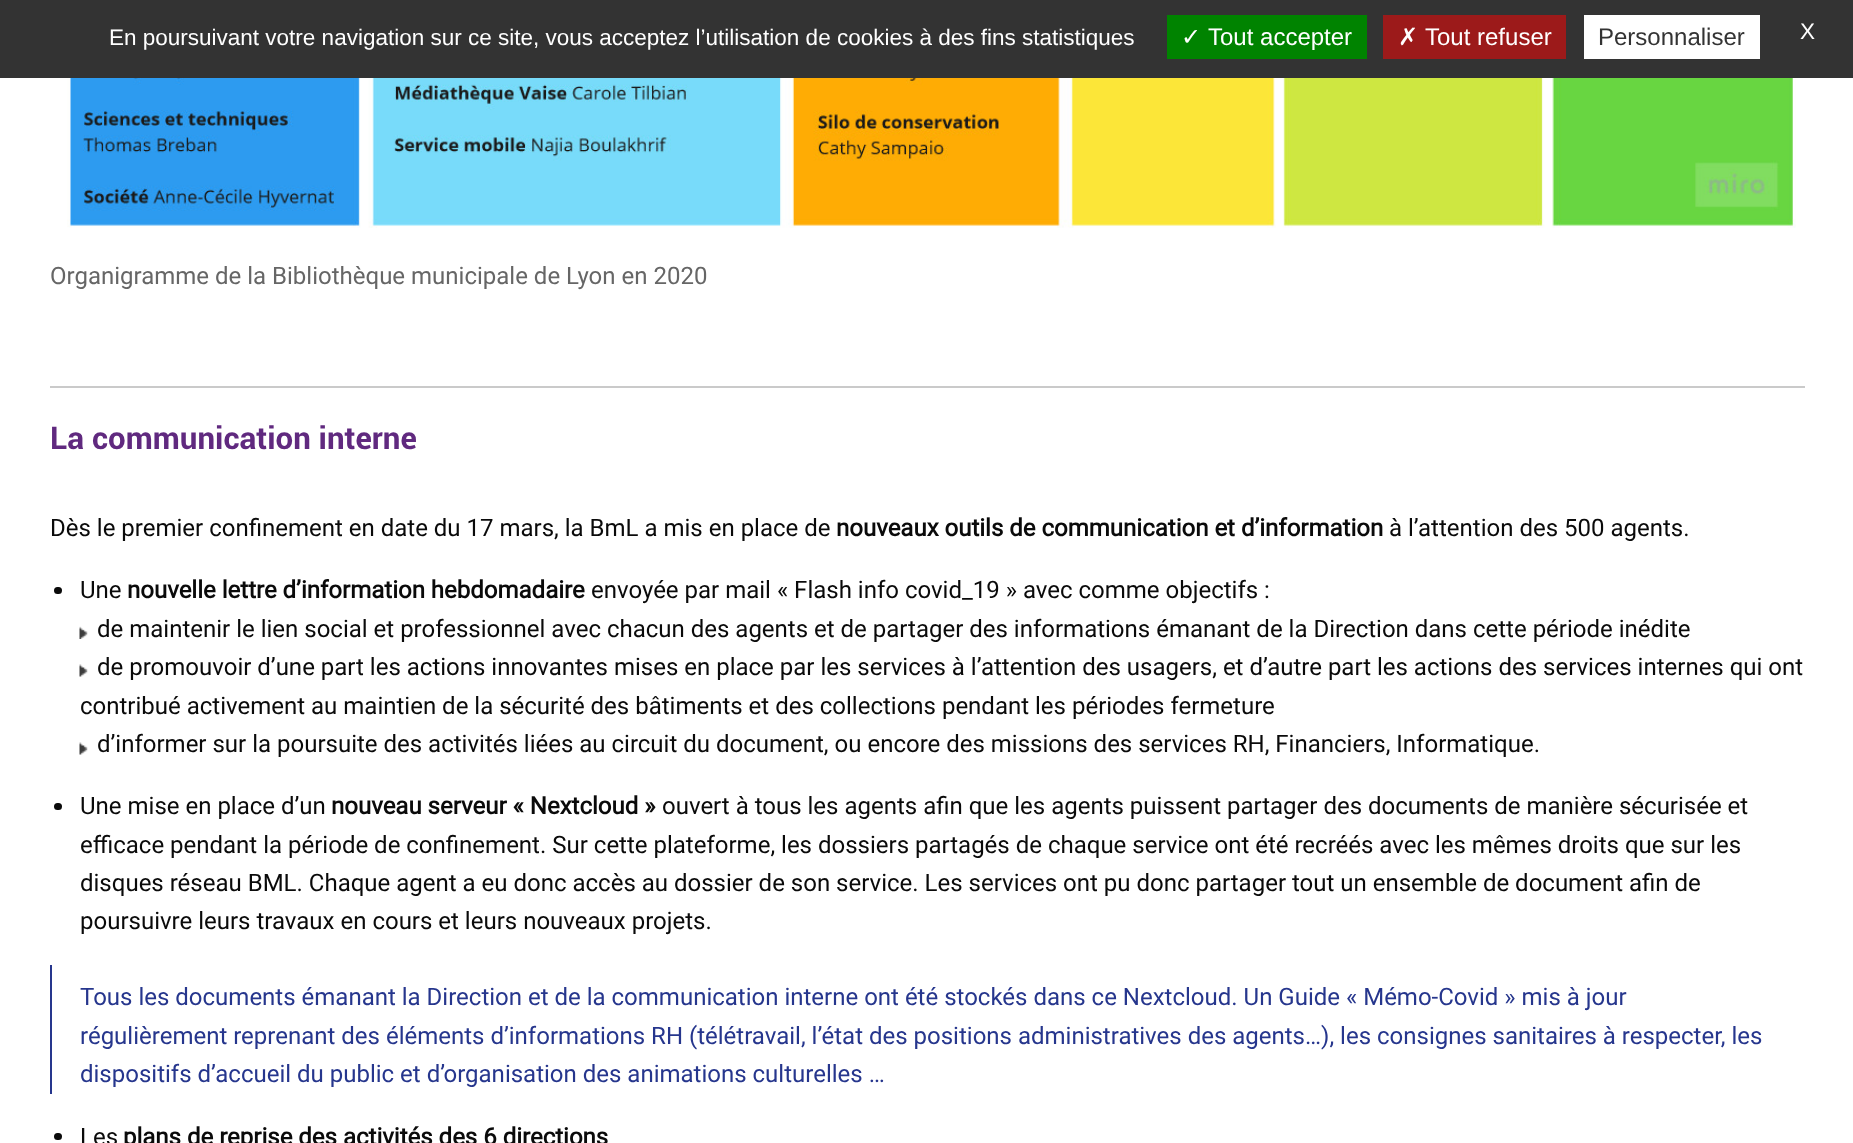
<?xml version="1.0" encoding="UTF-8"?>
<svg xmlns="http://www.w3.org/2000/svg" width="1853" height="1143">
    <rect width="100%" height="100%" fill="#FFFFFF"/>
    <rect x="0" y="0" width="1853" height="78" fill="#333333"/>
    <text x="109" y="45" font-family="Liberation Sans" font-size="22.5" fill="#FFFFFF">En poursuivant votre navigation sur ce site, vous acceptez l’utilisation de cookies à des fins statistiques</text>
    <rect x="1167" y="15" width="200" height="44" fill="#008300"/>
    <text x="1181" y="45" font-family="DejaVu Sans" font-size="24" fill="#FFFFFF">✓</text>
    <text x="1208" y="45" font-family="Liberation Sans" font-size="24" fill="#FFFFFF">Tout accepter</text>
    <rect x="1383" y="15" width="183" height="44" fill="#9C1A1A"/>
    <text x="1398" y="45" font-family="DejaVu Sans" font-size="24" fill="#FFFFFF">✗</text>
    <text x="1425" y="45" font-family="Liberation Sans" font-size="24" fill="#FFFFFF">Tout refuser</text>
    <rect x="1584" y="15" width="176" height="44" fill="#FFFFFF"/>
    <text x="1598" y="45" font-family="Liberation Sans" font-size="24" fill="#333333">Personnaliser</text>
    <text x="1800" y="39" font-family="Liberation Sans" font-size="22.5" fill="#FFFFFF">X</text>
    <image x="67" y="78" width="1729" height="150" href="img_01.png"/>
    <text x="50" y="284" font-family="Roboto" font-size="24" fill="#666666">Organigramme de la Bibliothèque municipale de Lyon en 2020</text>
    <rect x="50" y="386" width="1755" height="2" fill="#CACACA"/>
    <text x="50" y="449" font-family="Roboto" font-size="31.25" font-weight="700" fill="#60297F">La communication interne</text>
    <text x="50" y="536" font-family="Roboto" font-size="24" fill="#0A0A0A">Dès le premier confinement en date du 17 mars, la BmL a mis en place de</text>
    <text x="836" y="536" font-family="'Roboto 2'" font-size="24" font-weight="700" fill="#0A0A0A">nouveaux outils de communication et d’information</text>
    <text x="1389" y="536" font-family="Roboto" font-size="24" fill="#0A0A0A">à l’attention des 500 agents.</text>
    <rect x="54" y="587" width="8" height="7" rx="3.5" fill="#0A0A0A"/>
    <text x="80" y="598" font-family="Roboto" font-size="24" fill="#0A0A0A">Une</text>
    <text x="127" y="598" font-family="'Roboto 2'" font-size="24" font-weight="700" fill="#0A0A0A">nouvelle lettre d’information hebdomadaire</text>
    <text x="591" y="598" font-family="Roboto" font-size="24" fill="#0A0A0A">envoyée par mail « Flash info covid_19 » avec comme objectifs :</text>
    <image x="79" y="626" width="9" height="13" href="img_02.png"/>
    <text x="97" y="637" font-family="Roboto" font-size="24" fill="#0A0A0A">de maintenir le lien social et professionnel avec chacun des agents et de partager des informations émanant de la Direction dans cette période inédite</text>
    <image x="79" y="664" width="9" height="13" href="img_03.png"/>
    <text x="97" y="675" font-family="Roboto" font-size="24" fill="#0A0A0A">de promouvoir d’une part les actions innovantes mises en place par les services à l’attention des usagers, et d’autre part les actions des services internes qui ont</text>
    <text x="80" y="714" font-family="Roboto" font-size="24" fill="#0A0A0A">contribué activement au maintien de la sécurité des bâtiments et des collections pendant les périodes fermeture</text>
    <image x="79" y="742" width="9" height="13" href="img_03.png"/>
    <text x="97" y="752" font-family="Roboto" font-size="24" fill="#0A0A0A">d’informer sur la poursuite des activités liées au circuit du document, ou encore des missions des services RH, Financiers, Informatique.</text>
    <rect x="54" y="803" width="8" height="7" rx="3.5" fill="#0A0A0A"/>
    <text x="80" y="814" font-family="Roboto" font-size="24" fill="#0A0A0A">Une mise en place d’un</text>
    <text x="331" y="814" font-family="'Roboto 2'" font-size="24" font-weight="700" fill="#0A0A0A">nouveau serveur « Nextcloud »</text>
    <text x="662" y="814" font-family="Roboto" font-size="24" fill="#0A0A0A">ouvert à tous les agents afin que les agents puissent partager des documents de manière sécurisée et</text>
    <text font-family="Roboto" font-size="24" fill="#0A0A0A">
        <tspan x="80" y="853">efficace pendant la période de confinement. Sur cette plateforme, les dossiers partagés de chaque service ont été recréés avec les mêmes droits que sur les</tspan>
        <tspan x="80" y="891">disques réseau BML. Chaque agent a eu donc accès au dossier de son service. Les services ont pu donc partager tout un ensemble de document afin de</tspan>
        <tspan x="80" y="929">poursuivre leurs travaux en cours et leurs nouveaux projets.</tspan>
    </text>
    <rect x="50" y="965" width="2" height="129" fill="#26368D"/>
    <text font-family="Roboto" font-size="24" fill="#26368D">
        <tspan x="80" y="1005">Tous les documents émanant la Direction et de la communication interne ont été stockés dans ce Nextcloud. Un Guide « Mémo-Covid » mis à jour</tspan>
        <tspan x="80" y="1044">régulièrement reprenant des éléments d’informations RH (télétravail, l’état des positions administratives des agents…), les consignes sanitaires à respecter, les</tspan>
        <tspan x="80" y="1082">dispositifs d’accueil du public et d’organisation des animations culturelles …</tspan>
    </text>
    <rect x="54" y="1133" width="8" height="7" rx="3.5" fill="#0A0A0A"/>
    <text x="80" y="1145" font-family="Roboto" font-size="24" fill="#0A0A0A">Les</text>
    <text x="123" y="1145" font-family="'Roboto 2'" font-size="24" font-weight="700" fill="#0A0A0A">plans de reprise des activités des 6 directions</text>
</svg>
